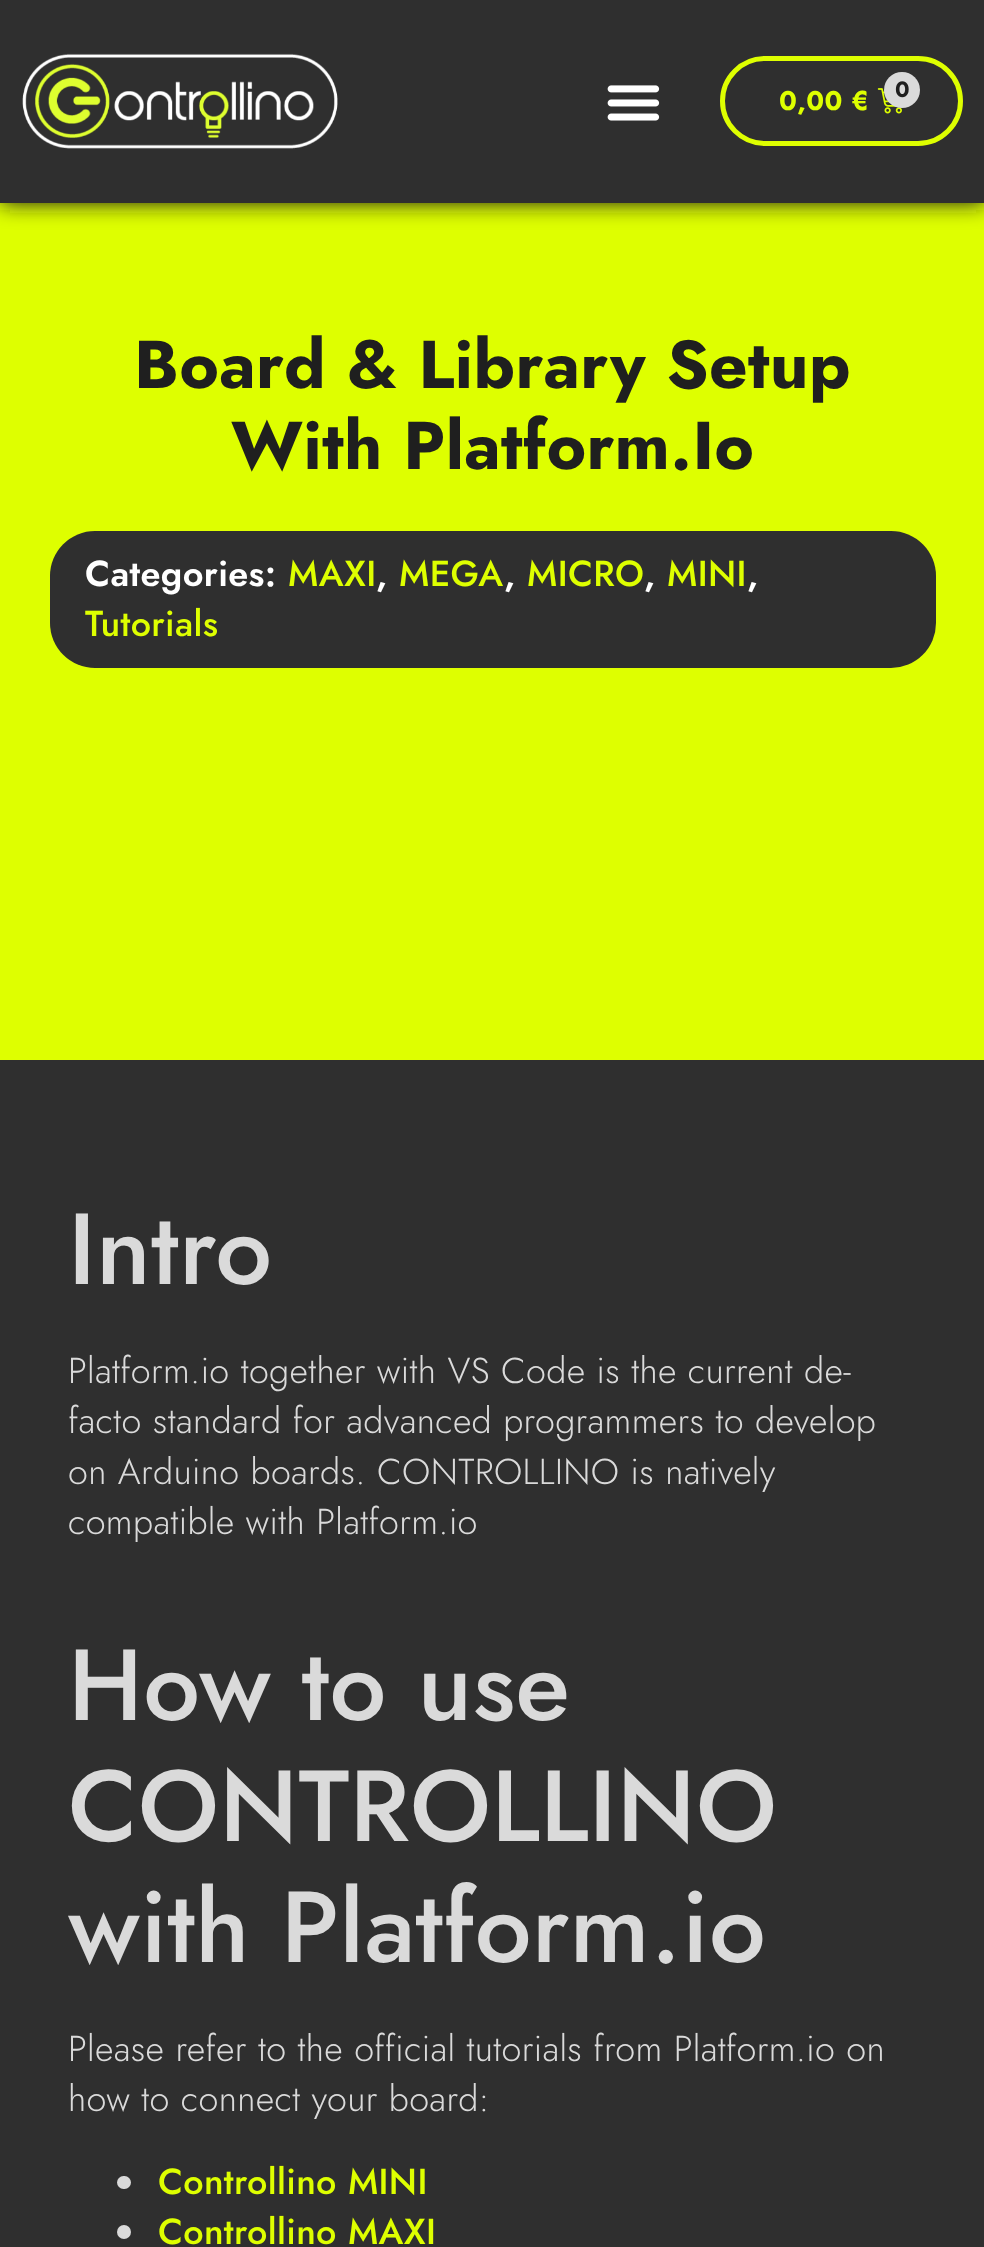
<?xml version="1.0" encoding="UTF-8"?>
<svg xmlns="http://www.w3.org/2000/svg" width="984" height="2247">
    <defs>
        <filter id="blur1" x="-50%" y="-200%" width="200%" height="500%"><feGaussianBlur stdDeviation="11"/></filter>
    </defs>
    <rect width="100%" height="100%" fill="#2F2F2F"/>
    <rect x="0" y="203" width="984" height="857" fill="#DEFF00"/>
    <rect x="0" y="0" width="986" height="203" fill="#1F1F1F" filter="url(#blur1)"/>
    <rect x="0" y="0" width="984" height="203" fill="#2F2F2F"/>
    <image x="22" y="53" width="316" height="96" href="img_01.png"/>
    <image x="607" y="85" width="53" height="36" href="img_02.png"/>
    <rect x="722.5" y="58.5" width="238" height="85" rx="42.5" fill="none" stroke="#DEFF00" stroke-width="5"/>
    <text x="779" y="110" font-family="Jost" font-size="27" font-weight="700" letter-spacing="0.35" fill="#DEFF00">0,00 €</text>
    <image x="877" y="88" width="25" height="26" href="img_03.png"/>
    <circle cx="902" cy="90" r="18" fill="#DADADA"/>
    <text x="895" y="97" font-family="Jost" font-size="22" font-weight="700" letter-spacing="0.35" fill="#1F1F1F">0</text>
    <text x="134" y="388" font-family="Jost" font-size="67.5" font-weight="700" letter-spacing="0.35" fill="#1F1F1F">Board &amp; Library Setup</text>
    <text x="231" y="469" font-family="Jost" font-size="67.5" font-weight="700" letter-spacing="0.35" fill="#1F1F1F">With Platform.Io</text>
    <rect x="50" y="531" width="886" height="137" rx="45" fill="#2F2F2F"/>
    <text x="85" y="586" font-family="Jost" font-size="36" font-weight="600" letter-spacing="0.35" fill="#FFFFFF">Categories:</text>
    <text x="288" y="586" font-family="Jost" font-size="36" font-weight="500" letter-spacing="0.35" fill="#DEFF00">MAXI</text>
    <text x="376" y="586" font-family="Jost" font-size="36" font-weight="600" letter-spacing="0.35" fill="#FFFFFF">,</text>
    <text x="399" y="586" font-family="Jost" font-size="36" font-weight="500" letter-spacing="0.35" fill="#DEFF00">MEGA</text>
    <text x="504" y="586" font-family="Jost" font-size="36" font-weight="600" letter-spacing="0.35" fill="#FFFFFF">,</text>
    <text x="527" y="586" font-family="Jost" font-size="36" font-weight="500" letter-spacing="0.35" fill="#DEFF00">MICRO</text>
    <text x="644" y="586" font-family="Jost" font-size="36" font-weight="600" letter-spacing="0.35" fill="#FFFFFF">,</text>
    <text x="667" y="586" font-family="Jost" font-size="36" font-weight="500" letter-spacing="0.35" fill="#DEFF00">MINI</text>
    <text x="747" y="586" font-family="Jost" font-size="36" font-weight="600" letter-spacing="0.35" fill="#FFFFFF">,</text>
    <text x="85" y="636" font-family="Jost" font-size="36" font-weight="500" letter-spacing="0.35" fill="#DEFF00">Tutorials</text>
    <text x="68" y="1284" font-family="Jost" font-size="100.75" font-weight="500" letter-spacing="0.35" fill="#DADADA">Intro</text>
    <text font-family="Jost" font-size="36" font-weight="300" letter-spacing="0.35" fill="#DADADA">
        <tspan x="68" y="1383">Platform.io together with VS Code is the current de-</tspan>
        <tspan x="68" y="1433">facto standard for advanced programmers to develop</tspan>
        <tspan x="68" y="1484">on Arduino boards. CONTROLLINO is natively</tspan>
        <tspan x="68" y="1534">compatible with Platform.io</tspan>
    </text>
    <text font-family="Jost" font-size="100.75" font-weight="500" letter-spacing="0.35" fill="#DADADA">
        <tspan x="68" y="1720">How to use</tspan>
        <tspan x="68" y="1841">CONTROLLINO</tspan>
        <tspan x="68" y="1962">with Platform.io</tspan>
    </text>
    <text font-family="Jost" font-size="36" font-weight="300" letter-spacing="0.35" fill="#DADADA">
        <tspan x="68" y="2061">Please refer to the official tutorials from Platform.io on</tspan>
        <tspan x="68" y="2111">how to connect your board:</tspan>
    </text>
    <rect x="117" y="2176" width="14" height="13" rx="6.5" fill="#DADADA"/>
    <text x="158" y="2194" font-family="Jost" font-size="36" font-weight="500" letter-spacing="0.35" fill="#DEFF00">Controllino MINI</text>
    <circle cx="124" cy="2232" r="7" fill="#DADADA"/>
    <text x="158" y="2244" font-family="Jost" font-size="36" font-weight="500" letter-spacing="0.35" fill="#DEFF00">Controllino MAXI</text>
</svg>
